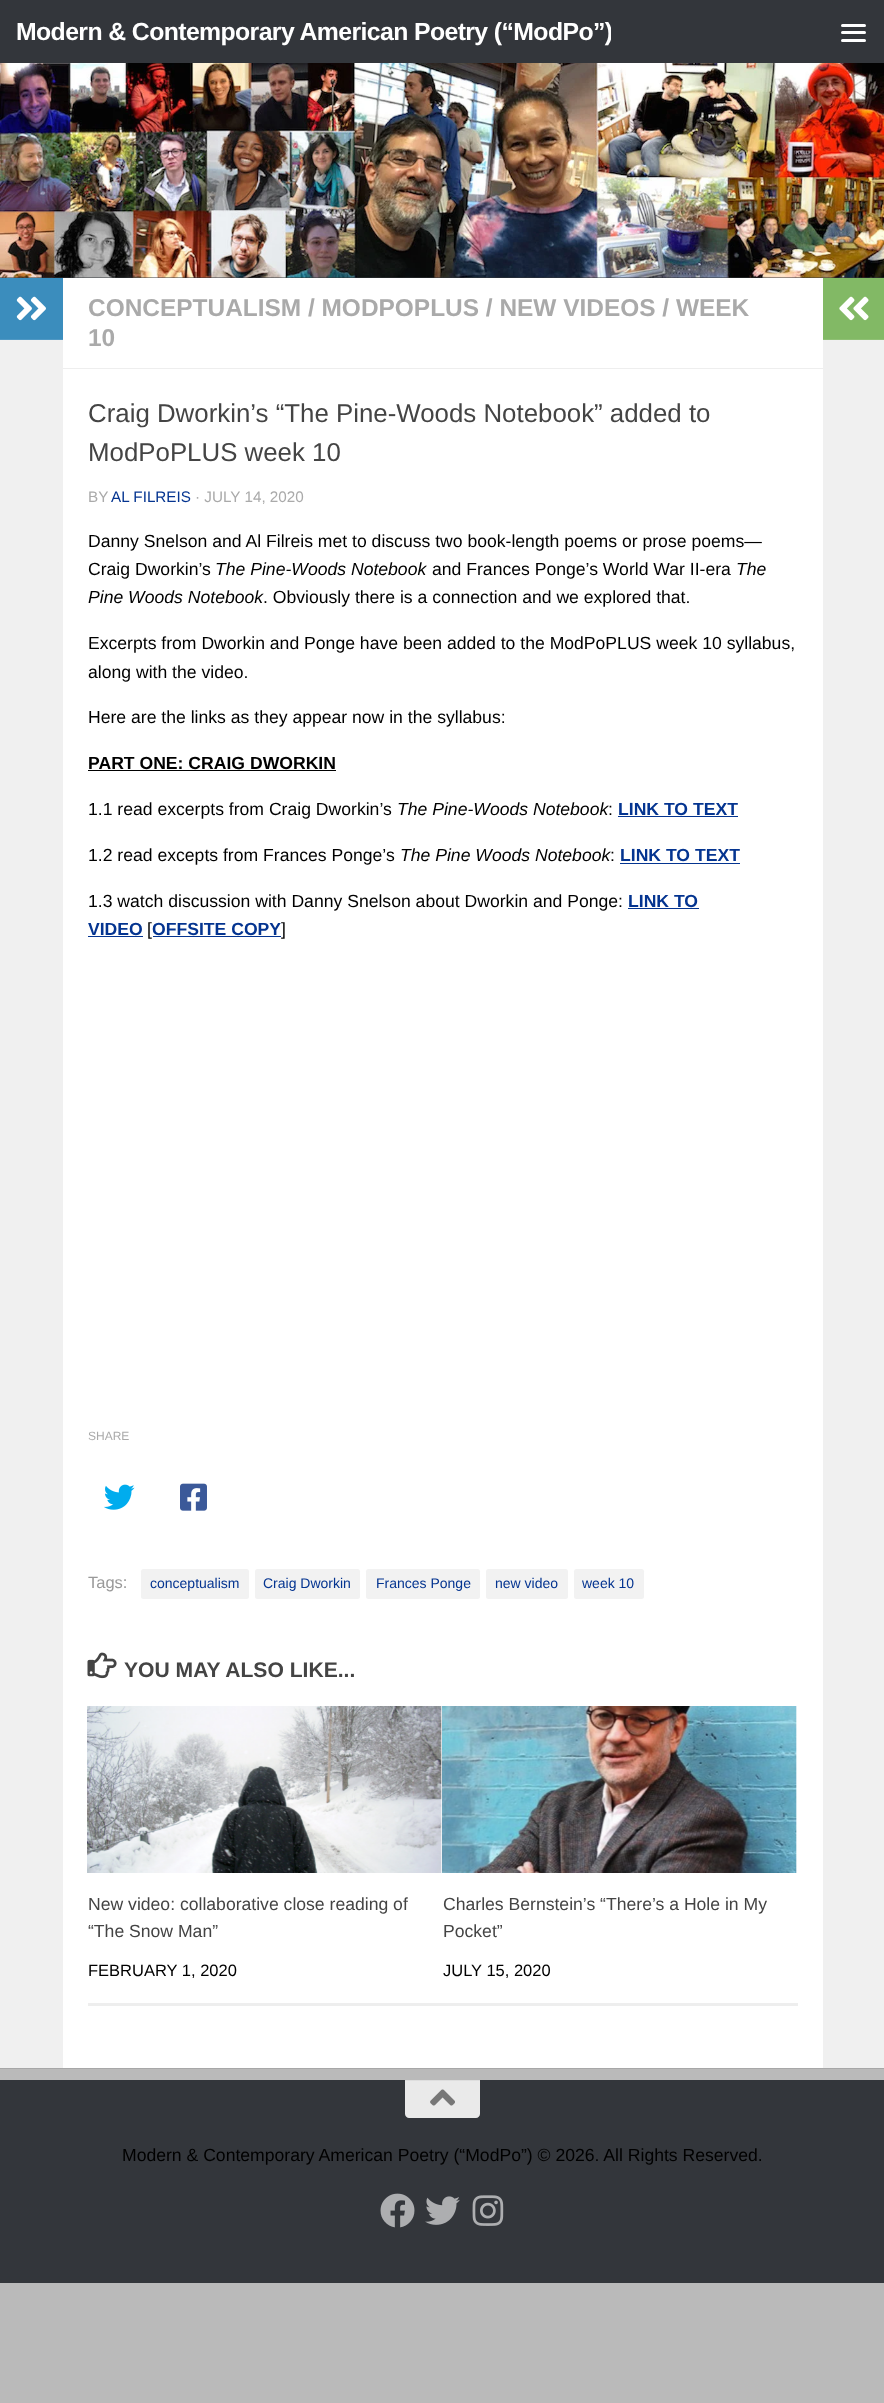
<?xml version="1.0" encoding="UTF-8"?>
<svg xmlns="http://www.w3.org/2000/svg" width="884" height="2403">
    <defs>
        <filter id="blur1" x="-50%" y="-200%" width="200%" height="500%"><feGaussianBlur stdDeviation="0.5"/></filter>
        <clipPath id="clip1"><rect x="16" y="0" width="595" height="63"/></clipPath>
    </defs>
    <rect width="100%" height="100%" fill="#BABABA"/>
    <rect x="0" y="279" width="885" height="1790" fill="#000000" fill-opacity="0.1" filter="url(#blur1)"/>
    <rect x="0" y="277" width="884" height="1" fill="#33363B"/>
    <rect x="0" y="0" width="884" height="63" fill="#33363B"/>
    <g clip-path="url(#clip1)">
        <text x="16" y="40" font-family="Liberation Sans" font-size="24.8" font-weight="700" letter-spacing="-0.6" fill="#FFFFFF">Modern &amp; Contemporary American Poetry (“ModPo”)</text>
    </g>
    <rect x="841" y="24" width="25" height="3" rx="1.5" fill="#FFFFFF"/>
    <rect x="841" y="31" width="25" height="3" rx="1.5" fill="#FFFFFF"/>
    <rect x="841" y="39" width="25" height="3" rx="1.5" fill="#FFFFFF"/>
    <image x="0" y="63" width="884" height="215" href="img_01.png"/>
    <rect x="63" y="278" width="760" height="1790" fill="#FFFFFF"/>
    <rect x="0" y="340" width="63" height="1728" fill="#F0F0F0"/>
    <rect x="0" y="278" width="63" height="61" fill="#3B8DBD"/>
    <rect x="0" y="339" width="63" height="1" fill="#4F98C4"/>
    <image x="16" y="296" width="30" height="25" href="img_02.png"/>
    <rect x="63" y="368" width="760" height="1" fill="#EEEEEE"/>
    <text font-family="Liberation Sans" font-size="24.45" font-weight="700" fill="#AAAAAA">
        <tspan x="88" y="316">CONCEPTUALISM / MODPOPLUS / NEW VIDEOS / WEEK</tspan>
        <tspan x="88" y="346">10</tspan>
    </text>
    <text font-family="Liberation Sans" font-size="25.85" fill="#444444">
        <tspan x="88" y="422">Craig Dworkin’s “The Pine-Woods Notebook” added to</tspan>
        <tspan x="88" y="461">ModPoPLUS week 10</tspan>
    </text>
    <text x="88" y="502" font-family="Liberation Sans" font-size="15.25" fill="#AAAAAA">BY</text>
    <text x="111" y="502" font-family="Liberation Sans" font-size="15.25" fill="#043490">AL FILREIS</text>
    <text x="195" y="502" font-family="Liberation Sans" font-size="15.25" fill="#AAAAAA">· JULY 14, 2020</text>
    <text font-family="Liberation Sans" font-size="17.6" fill="#000000">
        <tspan x="88" y="547">Danny Snelson and Al Filreis met to discuss two book-length poems or prose poems—</tspan>
        <tspan x="88" y="575">Craig Dworkin’s</tspan>
    </text>
    <text x="215" y="575" font-family="Liberation Sans" font-size="17.6" font-style="italic" fill="#000000">The Pine-Woods Notebook</text>
    <text x="432" y="575" font-family="Liberation Sans" font-size="17.6" fill="#000000">and Frances Ponge’s World War II-era</text>
    <text x="736" y="575" font-family="Liberation Sans" font-size="17.6" font-style="italic" fill="#000000">The</text>
    <text x="88" y="603" font-family="Liberation Sans" font-size="17.6" font-style="italic" fill="#000000">Pine Woods Notebook</text>
    <text x="263" y="603" font-family="Liberation Sans" font-size="17.6" fill="#000000">. Obviously there is a connection and we explored that.</text>
    <text font-family="Liberation Sans" font-size="17.6" fill="#000000">
        <tspan x="88" y="649">Excerpts from Dworkin and Ponge have been added to the ModPoPLUS week 10 syllabus,</tspan>
        <tspan x="88" y="678">along with the video.</tspan>
    </text>
    <text x="88" y="723" font-family="Liberation Sans" font-size="17.6" fill="#000000">Here are the links as they appear now in the syllabus:</text>
    <text x="88" y="769" font-family="Liberation Sans" font-size="17.6" font-weight="700" fill="#000000">PART ONE: CRAIG DWORKIN</text>
    <rect x="88" y="770" width="248" height="1" fill="#000000"/>
    <text x="88" y="815" font-family="Liberation Sans" font-size="17.6" fill="#000000">1.1 read excerpts from Craig Dworkin’s</text>
    <text x="397" y="815" font-family="Liberation Sans" font-size="17.6" font-style="italic" fill="#000000">The Pine-Woods Notebook</text>
    <text x="608" y="815" font-family="Liberation Sans" font-size="17.6" fill="#000000">:</text>
    <text x="618" y="815" font-family="Liberation Sans" font-size="17.6" font-weight="700" fill="#043490">LINK TO TEXT</text>
    <rect x="618" y="816" width="120" height="1" fill="#043490"/>
    <text x="88" y="861" font-family="Liberation Sans" font-size="17.6" fill="#000000">1.2 read excepts from Frances Ponge’s</text>
    <text x="400" y="861" font-family="Liberation Sans" font-size="17.6" font-style="italic" fill="#000000">The Pine Woods Notebook</text>
    <text x="610" y="861" font-family="Liberation Sans" font-size="17.6" fill="#000000">:</text>
    <text x="620" y="861" font-family="Liberation Sans" font-size="17.6" font-weight="700" fill="#043490">LINK TO TEXT</text>
    <rect x="620" y="863" width="120" height="1" fill="#043490"/>
    <text x="88" y="907" font-family="Liberation Sans" font-size="17.6" fill="#000000">1.3 watch discussion with Danny Snelson about Dworkin and Ponge:</text>
    <text x="628" y="907" font-family="Liberation Sans" font-size="17.6" font-weight="700" fill="#043490">LINK TO</text>
    <rect x="628" y="908" width="71" height="1" fill="#043490"/>
    <text x="88" y="935" font-family="Liberation Sans" font-size="17.6" font-weight="700" fill="#043490">VIDEO</text>
    <rect x="88" y="936" width="55" height="1" fill="#043490"/>
    <text x="147" y="935" font-family="Liberation Sans" font-size="17.6" fill="#000000">[</text>
    <text x="152" y="935" font-family="Liberation Sans" font-size="17.6" font-weight="700" fill="#043490">OFFSITE COPY</text>
    <rect x="153" y="936" width="128" height="1" fill="#043490"/>
    <text x="281" y="935" font-family="Liberation Sans" font-size="17.6" fill="#000000">]</text>
    <text x="88" y="1440" font-family="Liberation Sans" font-size="12" fill="#AAAAAA">SHARE</text>
    <image x="104" y="1484" width="31" height="26" href="img_03.png"/>
    <image x="180" y="1483" width="27" height="28" href="img_04.png"/>
    <text x="88" y="1588" font-family="Liberation Sans" font-size="16.5" fill="#999999">Tags:</text>
    <rect x="141" y="1569" width="108" height="30" rx="2.5" fill="#F2F2F2"/>
    <text x="150" y="1588" font-family="Liberation Sans" font-size="14" fill="#043490">conceptualism</text>
    <rect x="255" y="1569" width="105" height="30" rx="2.5" fill="#F2F2F2"/>
    <text x="263" y="1588" font-family="Liberation Sans" font-size="14" fill="#043490">Craig Dworkin</text>
    <rect x="366" y="1569" width="114" height="30" rx="2.5" fill="#F2F2F2"/>
    <text x="376" y="1588" font-family="Liberation Sans" font-size="14" fill="#043490">Frances Ponge</text>
    <rect x="486" y="1569" width="82" height="30" rx="2.5" fill="#F2F2F2"/>
    <text x="495" y="1588" font-family="Liberation Sans" font-size="14" fill="#043490">new video</text>
    <rect x="574" y="1569" width="70" height="30" rx="2.5" fill="#F2F2F2"/>
    <text x="582" y="1588" font-family="Liberation Sans" font-size="14" fill="#043490">week 10</text>
    <image x="87" y="1652" width="30" height="27" href="img_05.png"/>
    <text x="124" y="1677" font-family="Liberation Sans" font-size="21.1" font-weight="700" fill="#444444">YOU MAY ALSO LIKE...</text>
    <rect x="88" y="2003" width="710" height="3" fill="#EEEEEE"/>
    <image x="87" y="1706" width="355" height="167" href="img_06.png"/>
    <text font-family="Liberation Sans" font-size="17.6" fill="#444444">
        <tspan x="88" y="1910">New video: collaborative close reading of</tspan>
        <tspan x="88" y="1937">“The Snow Man”</tspan>
    </text>
    <text x="88" y="1976" font-family="Liberation Sans" font-size="16.5" fill="#000000">FEBRUARY 1, 2020</text>
    <image x="442" y="1706" width="355" height="167" href="img_07.png"/>
    <text font-family="Liberation Sans" font-size="17.6" fill="#444444">
        <tspan x="443" y="1910">Charles Bernstein’s “There’s a Hole in My</tspan>
        <tspan x="443" y="1937">Pocket”</tspan>
    </text>
    <text x="443" y="1976" font-family="Liberation Sans" font-size="16.5" fill="#000000">JULY 15, 2020</text>
    <rect x="823" y="278" width="61" height="61" fill="#82B965"/>
    <rect x="823" y="339" width="61" height="1" fill="#8FC074"/>
    <image x="839" y="296" width="30" height="25" href="img_08.png"/>
    <rect x="823" y="340" width="61" height="1728" fill="#F0F0F0"/>
    <rect x="0" y="2080" width="884" height="203" fill="#33363B"/>
    <path d="M 405 2080 H 480 V 2114 C 480 2116 478 2118 476 2118 H 409 C 407 2118 405 2116 405 2114 Z" fill="#EAEAEA"/>
    <rect x="405" y="2080" width="75" height="1" fill="#DEDEDE"/>
    <image x="430" y="2089" width="25" height="17" href="img_09.png"/>
    <text x="122" y="2161" font-family="Liberation Sans" font-size="17.6" fill="#000000">Modern &amp; Contemporary American Poetry (“ModPo”) © 2026. All Rights Reserved.</text>
    <image x="380" y="2193" width="35" height="35" href="img_10.png"/>
    <image x="425" y="2196" width="35" height="29" href="img_11.png"/>
    <image x="472" y="2195" width="32" height="31" href="img_12.png"/>
</svg>
